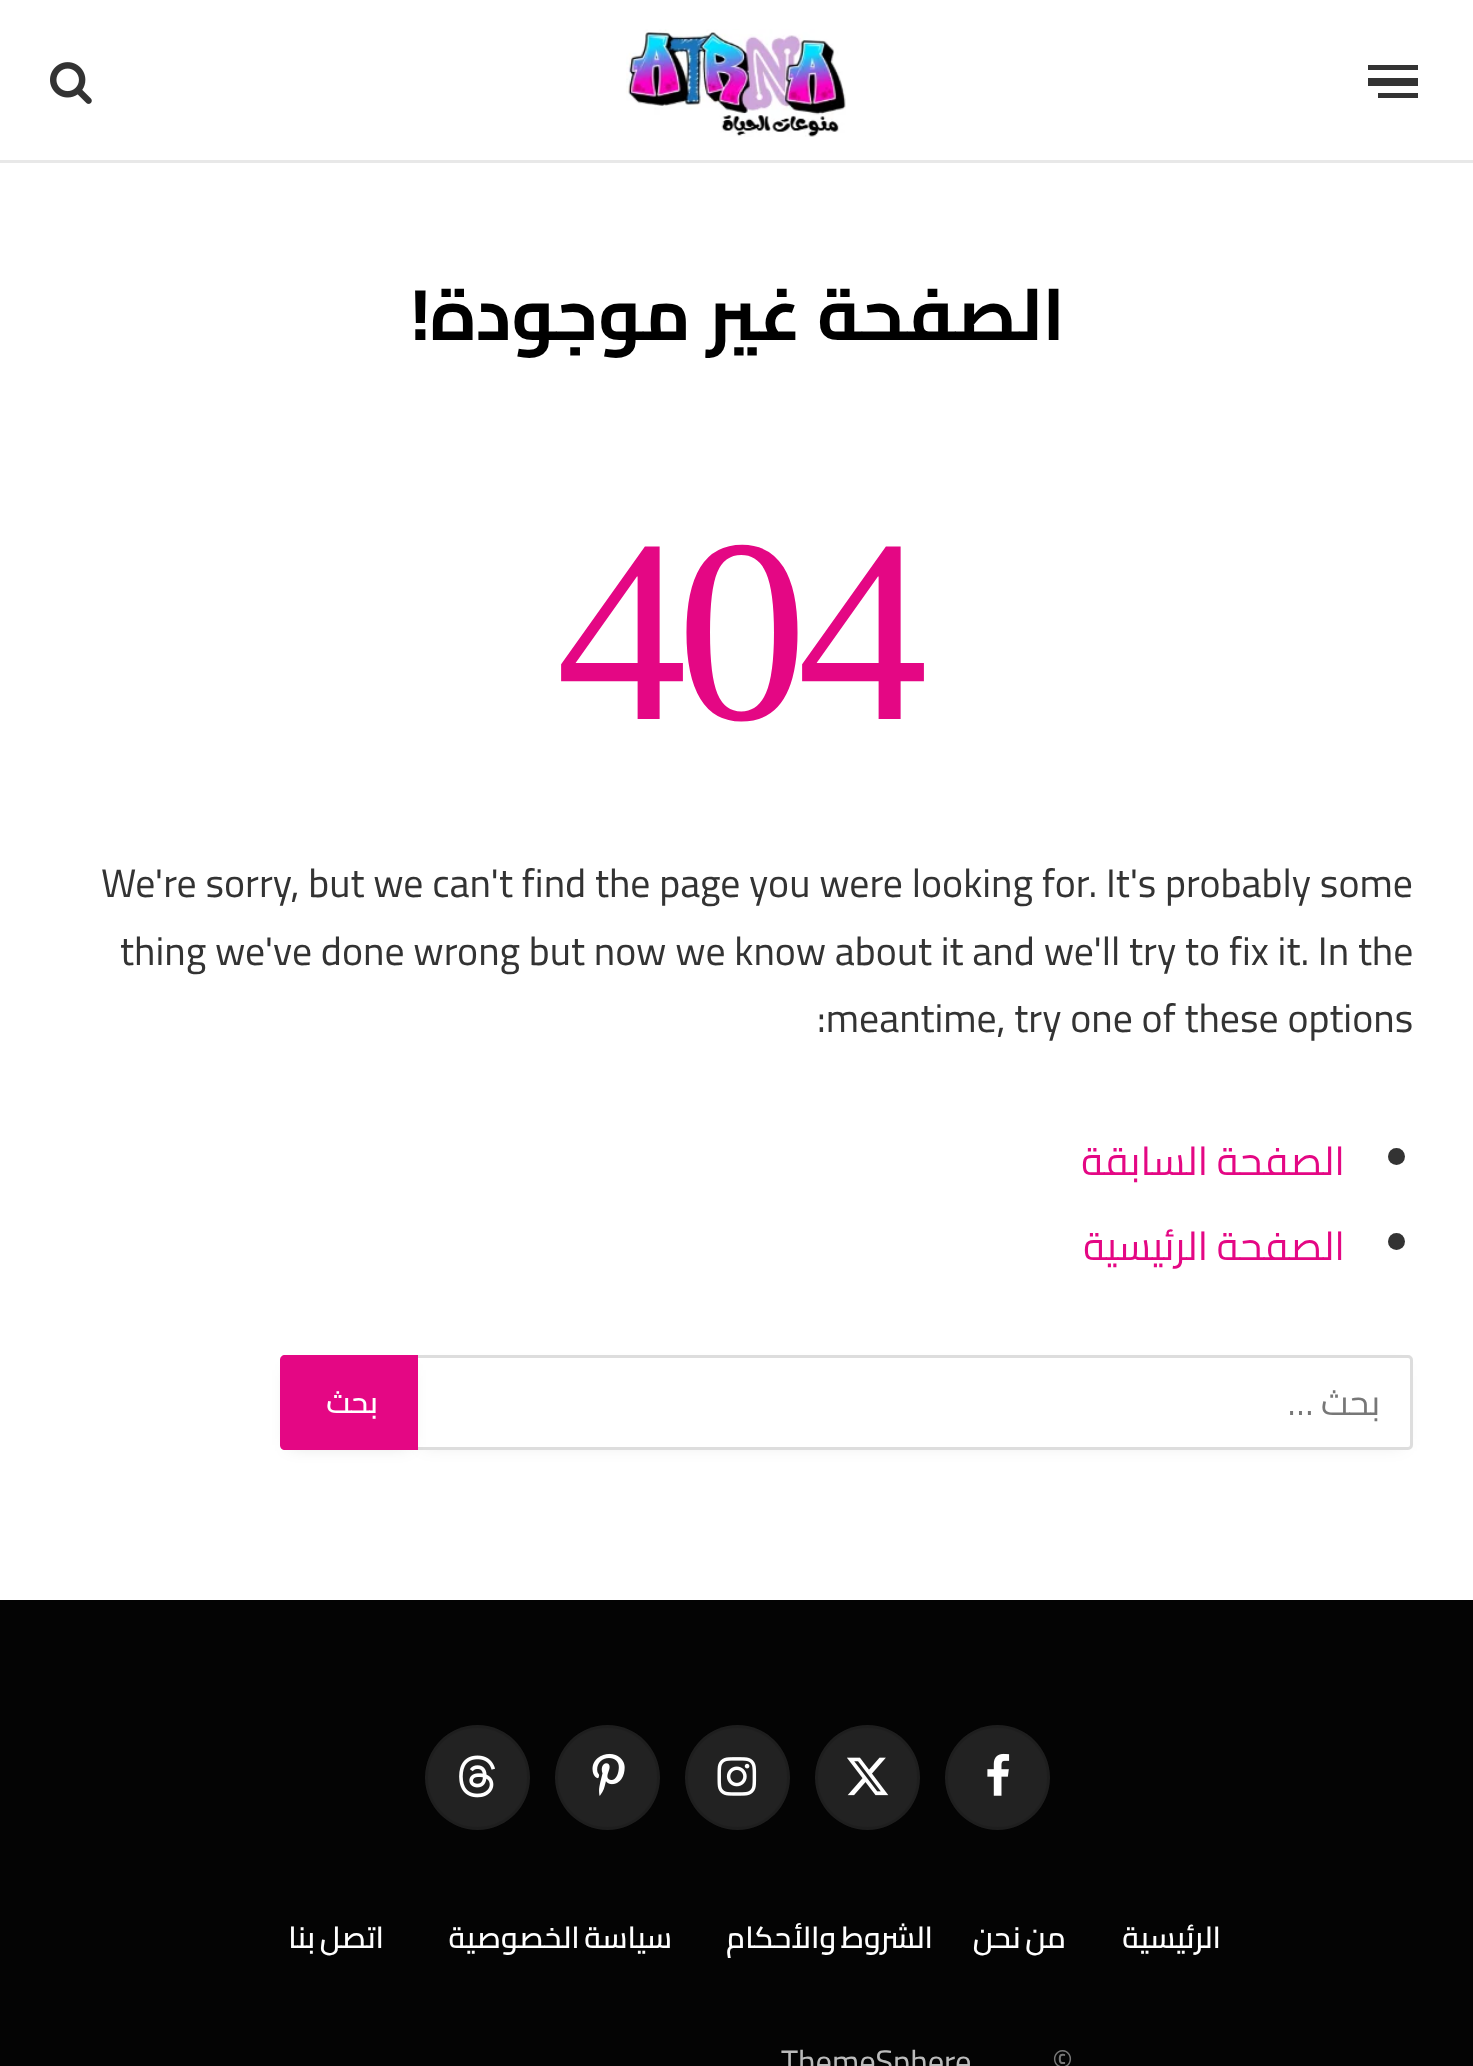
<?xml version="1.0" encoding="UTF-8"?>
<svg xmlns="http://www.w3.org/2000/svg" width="1473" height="2066">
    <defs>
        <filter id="blur1" x="-50%" y="-200%" width="200%" height="500%"><feGaussianBlur stdDeviation="9"/></filter>
    </defs>
    <rect width="100%" height="100%" fill="#FFFFFF"/>
    <rect x="0" y="160" width="1473" height="3" fill="#E8E8E8"/>
    <image x="50" y="62" width="42" height="42" href="img_01.png"/>
    <image x="626" y="29" width="220" height="108" href="img_02.png"/>
    <rect x="1378" y="93" width="40" height="5" fill="#333333"/>
    <rect x="1368" y="65" width="50" height="5" fill="#333333"/>
    <rect x="1368" y="78" width="50" height="8" fill="#333333"/>
    <text x="1065" y="340" font-family="Cairo" font-size="72.5" font-weight="700" direction="rtl" fill="#000000">الصفحة غير موجودة!</text>
    <text x="556" y="719" font-family="Liberation Serif" font-size="262" letter-spacing="-10.5" fill="#E40784">404</text>
    <text x="101" y="897" font-family="Cairo" font-size="39.85" fill="#333333">We're sorry, but we can't find the page you were looking for. It's probably some</text>
    <text x="120" y="965" font-family="Cairo" font-size="39.85" fill="#333333">thing we've done wrong but now we know about it and we'll try to fix it. In the</text>
    <text x="817" y="1032" font-family="Cairo" font-size="39.85" fill="#333333">:meantime, try one of these options</text>
    <text x="1345" y="1175" font-family="Cairo" font-size="39.85" direction="rtl" fill="#E40784">الصفحة السابقة</text>
    <circle cx="1396.5" cy="1156.5" r="8.5" fill="#333333"/>
    <text x="1345" y="1260" font-family="Cairo" font-size="39.85" direction="rtl" fill="#E40784">الصفحة الرئيسية</text>
    <circle cx="1396.5" cy="1241.5" r="8.5" fill="#333333"/>
    <rect x="423" y="1370" width="980" height="75" fill="#000000" fill-opacity="0.1" filter="url(#blur1)"/>
    <rect x="414.5" y="1356.5" width="997" height="92" rx="3.5" fill="#FFFFFF" stroke="#DDDDDD" stroke-width="3"/>
    <rect x="290" y="1370" width="118" height="75" fill="#000000" fill-opacity="0.16" filter="url(#blur1)"/>
    <path d="M 285 1355 H 418 V 1450 H 285 C 282 1450 280 1448 280 1445 V 1360 C 280 1357 282 1355 285 1355 Z" fill="#E40784"/>
    <text x="378" y="1413" font-family="Cairo" font-size="30" font-weight="600" letter-spacing="1" direction="rtl" fill="#FFFFFF">بحث</text>
    <text x="1380" y="1415" font-family="Cairo" font-size="35" direction="rtl" fill="#777777">بحث …</text>
    <rect x="0" y="1600" width="1473" height="466" fill="#040404"/>
    <circle cx="477.5" cy="1777.5" r="52.5" fill="#222222"/>
    <circle cx="477.5" cy="1777.5" r="51" fill="none" stroke="#000000" stroke-opacity="0.09" stroke-width="3"/>
    <image x="459" y="1755" width="36" height="43" href="img_03.png"/>
    <circle cx="607.5" cy="1777.5" r="52.5" fill="#222222"/>
    <circle cx="607.5" cy="1777.5" r="51" fill="none" stroke="#000000" stroke-opacity="0.09" stroke-width="3"/>
    <image x="592" y="1753" width="33" height="43" href="img_04.png"/>
    <circle cx="737.5" cy="1777.5" r="52.5" fill="#222222"/>
    <circle cx="737.5" cy="1777.5" r="51" fill="none" stroke="#000000" stroke-opacity="0.09" stroke-width="3"/>
    <image x="717" y="1757" width="40" height="39" href="img_05.png"/>
    <circle cx="867.5" cy="1777.5" r="52.5" fill="#222222"/>
    <circle cx="867.5" cy="1777.5" r="51" fill="none" stroke="#000000" stroke-opacity="0.09" stroke-width="3"/>
    <image x="847" y="1757" width="42" height="39" href="img_06.png"/>
    <circle cx="997.5" cy="1777.5" r="52.5" fill="#222222"/>
    <circle cx="997.5" cy="1777.5" r="51" fill="none" stroke="#000000" stroke-opacity="0.09" stroke-width="3"/>
    <image x="987" y="1753" width="23" height="43" href="img_07.png"/>
    <text x="384" y="1948" word-spacing="-2" font-family="Cairo" font-size="30" font-weight="600" letter-spacing="2.1" direction="rtl" fill="#FFFFFF">اتصل بنا</text>
    <text x="672" y="1948" word-spacing="-2" font-family="Cairo" font-size="30" font-weight="600" letter-spacing="2.1" direction="rtl" fill="#FFFFFF">سياسة الخصوصية</text>
    <text x="933" y="1948" word-spacing="-2" font-family="Cairo" font-size="30" font-weight="600" letter-spacing="2.1" direction="rtl" fill="#FFFFFF">الشروط والأحكام</text>
    <text x="1066" y="1948" word-spacing="-2" font-family="Cairo" font-size="30" font-weight="600" letter-spacing="2.1" direction="rtl" fill="#FFFFFF">من نحن</text>
    <text x="1221" y="1948" font-family="Cairo" font-size="30" font-weight="600" letter-spacing="2.1" direction="rtl" fill="#FFFFFF">الرئيسية</text>
    <text x="781" y="2073" font-family="Cairo" font-size="32.5" fill="#BBBBBB">ThemeSphere</text>
    <text x="1052" y="2073" font-family="Cairo" font-size="32.5" fill="#777777">©</text>
</svg>
